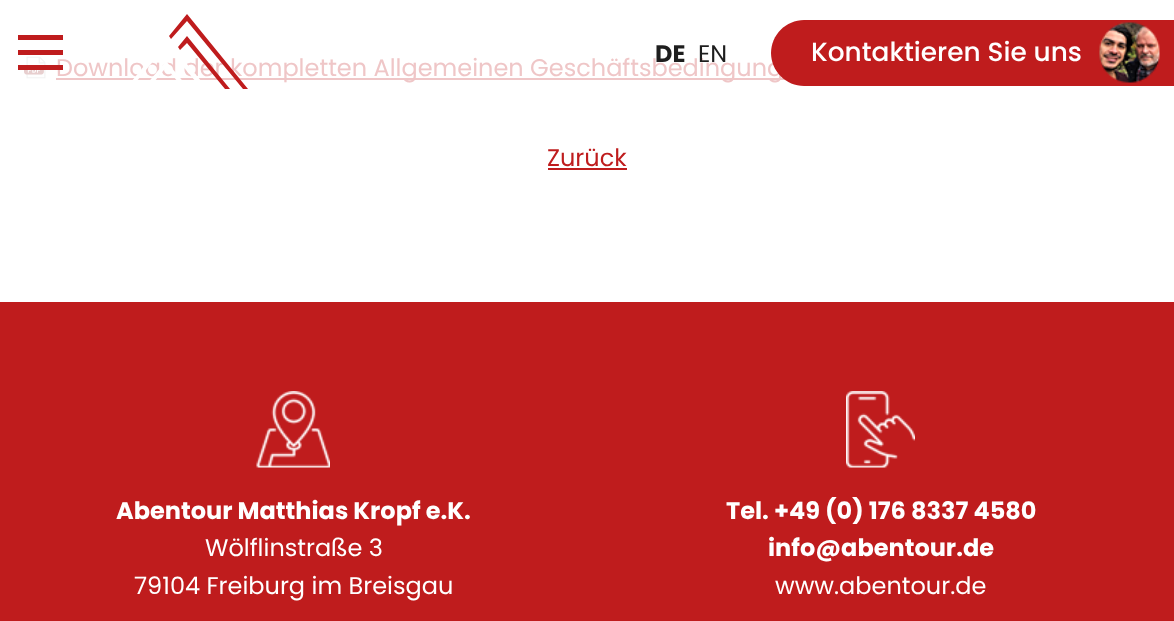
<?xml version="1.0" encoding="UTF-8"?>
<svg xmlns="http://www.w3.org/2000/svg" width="1174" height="621">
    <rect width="100%" height="100%" fill="#FFFFFF"/>
    <rect x="18" y="35" width="45" height="5" fill="#BF1C1D"/>
    <rect x="18" y="50" width="45" height="5" fill="#BF1C1D"/>
    <image x="24" y="56" width="22" height="23" href="img_02.png"/>
    <rect x="56" y="78" width="729" height="2" fill="#EFC6C7"/>
    <text x="56" y="76" font-family="Poppins" font-size="24" fill="#EFC6C7">Download der kompletten Allgemeinen Geschäftsbedingung</text>
    <rect x="18" y="65" width="45" height="5" fill="#BF1C1D"/>
    <path d="M 180 50 L 187 43 L 225 89 H 230 L 187 36 L 178 47 Z" fill="#BF1C1D"/>
    <path d="M 187 21 L 243 89 H 248 L 187 14 L 169 36 L 171 39 Z" fill="#BF1C1D"/>
    <path d="M 154 82 L 166 67.5 L 178 82 H 183.5 L 166 61 L 148.5 82 Z" fill="#FFFFFF"/>
    <path d="M 136 82 L 166 46 L 196 82 H 202 L 166 39 L 131 82 Z" fill="#FFFFFF"/>
    <text x="655" y="62" font-family="Poppins" font-size="24" font-weight="700" fill="#1E1E1E">DE</text>
    <text x="698" y="62" font-family="Poppins" font-size="24" fill="#1E1E1E">EN</text>
    <path d="M 804 20 H 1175 V 86 H 804 C 786 86 771 71 771 53 C 771 35 786 20 804 20 Z" fill="#BF1C1D"/>
    <text x="811" y="61" font-family="Poppins" font-size="26.4" font-weight="500" fill="#FFFFFF">Kontaktieren Sie uns</text>
    <image x="1099" y="22" width="61" height="61" href="img_01.png"/>
    <text x="547" y="166" font-family="Poppins" font-size="24" fill="#BF1C1D">Zurück</text>
    <rect x="548" y="168" width="79" height="2" fill="#BF1C1D"/>
    <rect x="0" y="302" width="1174" height="319" fill="#BF1C1D"/>
    <image x="256" y="391" width="74" height="77" href="img_03.png"/>
    <text x="116" y="519" font-family="Poppins" font-size="24" font-weight="700" fill="#FFFFFF">Abentour Matthias Kropf e.K.</text>
    <text x="205" y="556" font-family="Poppins" font-size="24" fill="#FFFFFF">Wölflinstraße 3</text>
    <text x="134" y="594" font-family="Poppins" font-size="24" fill="#FFFFFF">79104 Freiburg im Breisgau</text>
    <image x="846" y="391" width="69" height="77" href="img_04.png"/>
    <text x="726" y="519" font-family="Poppins" font-size="24" font-weight="700" fill="#FFFFFF">Tel. +49 (0) 176 8337 4580</text>
    <text x="768" y="556" font-family="Poppins" font-size="24" font-weight="700" fill="#FFFFFF">info@abentour.de</text>
    <text x="775" y="594" font-family="Poppins" font-size="24" fill="#FFFFFF">www.abentour.de</text>
</svg>
